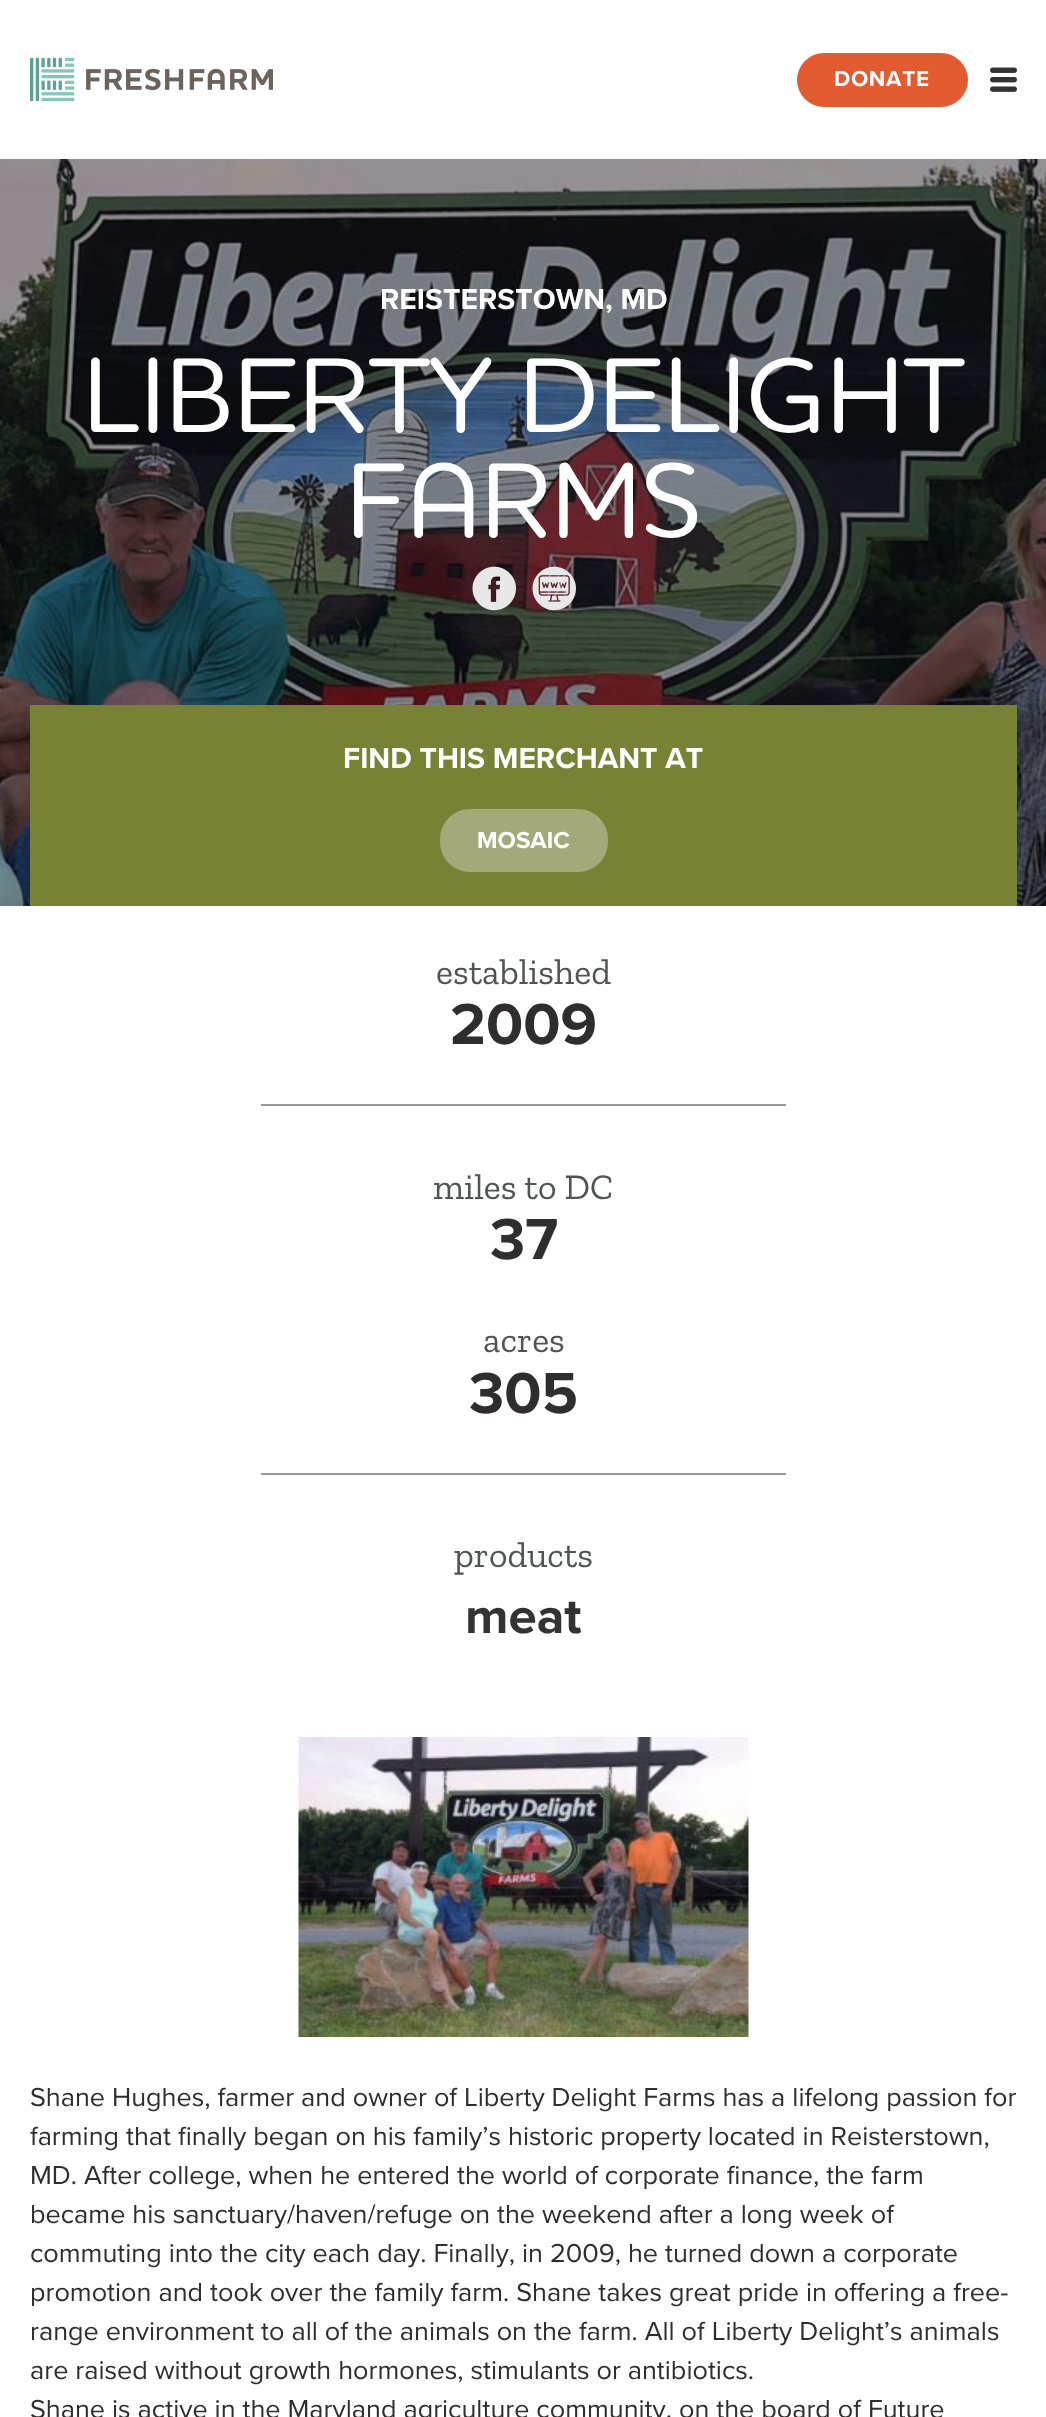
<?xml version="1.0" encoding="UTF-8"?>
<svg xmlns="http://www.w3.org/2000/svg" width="1046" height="2417">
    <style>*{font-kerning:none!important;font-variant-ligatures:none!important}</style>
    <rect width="100%" height="100%" fill="#FFFFFF"/>
    <image x="30" y="57" width="243" height="45" href="img_01.png"/>
    <rect x="797" y="53" width="171" height="54" rx="27" fill="#E35B31"/>
    <text x="834" y="86" font-family="Proxima Nova" font-size="22.5" font-weight="700" letter-spacing="0.75" fill="#FFFFFF">DONATE</text>
    <image x="990" y="67" width="27" height="25" href="img_02.png"/>
    <image x="0" y="159" width="1046" height="747" href="img_03.png"/>
    <text x="380" y="309" font-family="Proxima Nova" font-size="30" font-weight="700" fill="#FFFFFF">REISTERSTOWN, MD</text>
    <text x="83" y="432" font-family="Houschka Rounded" font-size="108" font-weight="500" fill="#FFFFFF">LIBERTY DELIGHT</text>
    <text x="346" y="537" font-family="Houschka Rounded" font-size="108" font-weight="500" fill="#FFFFFF">FARMS</text>
    <image x="472" y="566" width="44" height="45" href="img_04.png"/>
    <image x="532" y="566" width="44" height="45" href="img_05.png"/>
    <rect x="30" y="705" width="987" height="201" fill="#788235"/>
    <text x="343" y="768" font-family="Proxima Nova" font-size="30" font-weight="700" fill="#FFFFFF">FIND THIS MERCHANT AT</text>
    <rect x="440" y="809" width="168" height="63" rx="30" fill="#A3A979"/>
    <text x="477" y="848" font-family="Proxima Nova" font-size="24" font-weight="700" fill="#FFFFFF">MOSAIC</text>
    <text x="436" y="984" font-family="Zilla Slab" font-size="36" fill="#525454">established</text>
    <text x="450" y="1044" font-family="Proxima Nova" font-size="60" font-weight="700" fill="#2F2D2D">2009</text>
    <rect x="261" y="1104" width="525" height="2" fill="#979797"/>
    <text x="433" y="1199" font-family="Zilla Slab" font-size="36" fill="#525454">miles to DC</text>
    <text x="490" y="1259" font-family="Proxima Nova" font-size="60" font-weight="700" fill="#2F2D2D">37</text>
    <text x="483" y="1352" font-family="Zilla Slab" font-size="36" fill="#525454">acres</text>
    <text x="469" y="1413" font-family="Proxima Nova" font-size="60" font-weight="700" fill="#2F2D2D">305</text>
    <rect x="261" y="1473" width="525" height="2" fill="#979797"/>
    <text x="454" y="1567" font-family="Zilla Slab" font-size="36" fill="#525454">products</text>
    <text x="465" y="1633" font-family="Proxima Nova" font-size="51" font-weight="700" fill="#333333">meat</text>
    <image x="298" y="1737" width="451" height="300" href="img_06.png"/>
    <text font-family="Proxima Nova" font-size="27" fill="#2F2D2D">
        <tspan x="30" y="2106">Shane Hughes, farmer and owner of Liberty Delight Farms has a lifelong passion for</tspan>
        <tspan x="30" y="2145">farming that finally began on his family’s historic property located in Reisterstown,</tspan>
        <tspan x="30" y="2184">MD. After college, when he entered the world of corporate finance, the farm</tspan>
        <tspan x="30" y="2223">became his sanctuary/haven/refuge on the weekend after a long week of</tspan>
        <tspan x="30" y="2262">commuting into the city each day. Finally, in 2009, he turned down a corporate</tspan>
        <tspan x="30" y="2301">promotion and took over the family farm. Shane takes great pride in offering a free-</tspan>
        <tspan x="30" y="2340">range environment to all of the animals on the farm. All of Liberty Delight’s animals</tspan>
        <tspan x="30" y="2379">are raised without growth hormones, stimulants or antibiotics.</tspan>
        <tspan x="30" y="2418">Shane is active in the Maryland agriculture community, on the board of Future</tspan>
    </text>
</svg>
